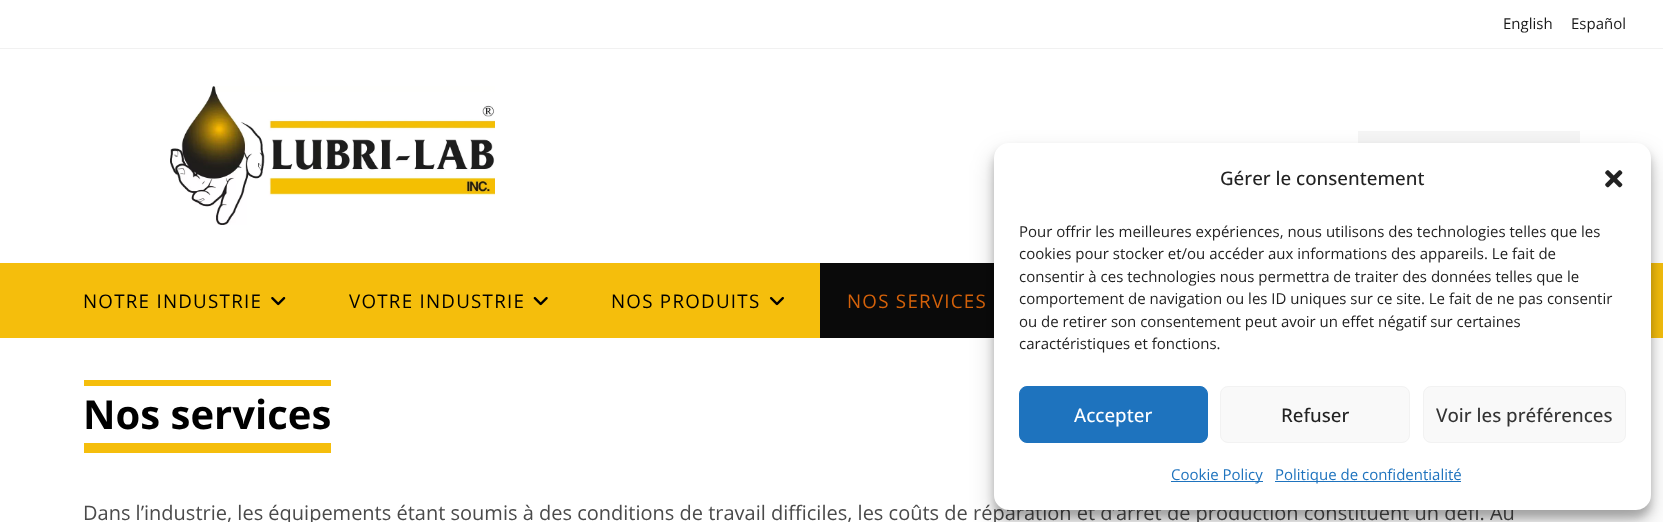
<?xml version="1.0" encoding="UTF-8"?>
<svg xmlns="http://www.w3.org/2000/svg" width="1663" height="522">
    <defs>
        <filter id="blur1" x="-50%" y="-200%" width="200%" height="500%"><feGaussianBlur stdDeviation="4"/></filter>
        <filter id="blur2" x="-50%" y="-200%" width="200%" height="500%"><feGaussianBlur stdDeviation="12.5"/></filter>
    </defs>
    <rect width="100%" height="100%" fill="#FFFFFF"/>
    <rect x="0" y="48" width="1663" height="1" fill="#F1F1F1"/>
    <text x="1503" y="29" font-family="Open Sans" font-size="15" fill="#191919">English</text>
    <text x="1571" y="29" font-family="Open Sans" font-size="15" fill="#191919">Español</text>
    <image x="170" y="86" width="325" height="139" href="img_01.png"/>
    <rect x="1358" y="131" width="222" height="12" fill="#F5F5F5"/>
    <rect x="0" y="263" width="1663" height="75" fill="#F5BE0C"/>
    <text x="83" y="308" font-family="Open Sans" font-size="18.75" letter-spacing="1.25" fill="#000000">NOTRE INDUSTRIE</text>
    <image x="271" y="297" width="15" height="9" href="img_02.png"/>
    <text x="349" y="308" font-family="Open Sans" font-size="18.75" letter-spacing="1.25" fill="#000000">VOTRE INDUSTRIE</text>
    <image x="533" y="297" width="15" height="9" href="img_03.png"/>
    <text x="611" y="308" font-family="Open Sans" font-size="18.75" letter-spacing="1.25" fill="#000000">NOS PRODUITS</text>
    <image x="769" y="297" width="15" height="9" href="img_04.png"/>
    <rect x="820" y="263" width="174" height="75" fill="#0A0A0A"/>
    <text x="847" y="308" font-family="Open Sans" font-size="18.75" letter-spacing="1.25" fill="#D3610A">NOS SERVICES</text>
    <rect x="84" y="380" width="247" height="6" fill="#F5BE0C"/>
    <rect x="84" y="443" width="247" height="10" fill="#F5BE0C"/>
    <text x="83" y="429" font-family="Open Sans" font-size="40" font-weight="700" fill="#000000">Nos services</text>
    <text x="83" y="520" font-family="Open Sans" font-size="20" fill="#4A4A4A">Dans l’industrie, les équipements étant soumis à des conditions de travail difficiles, les coûts de réparation et d’arrêt de production constituent un défi. Au</text>
    <rect x="994" y="150" width="657" height="368" rx="15" fill="#000000" fill-opacity="0.23" filter="url(#blur1)"/>
    <rect x="994" y="155" width="657" height="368" rx="15" fill="#000000" fill-opacity="0.19" filter="url(#blur2)"/>
    <rect x="994" y="143" width="657" height="367" rx="15" fill="#FFFFFF"/>
    <text x="1220" y="185" font-family="Open Sans" font-size="18.75" font-weight="500" fill="#222222">Gérer le consentement</text>
    <image x="1605" y="170" width="18" height="18" href="img_05.png"/>
    <text font-family="Open Sans" font-size="15" fill="#222222">
        <tspan x="1019" y="237">Pour offrir les meilleures expériences, nous utilisons des technologies telles que les</tspan>
        <tspan x="1019" y="259">cookies pour stocker et/ou accéder aux informations des appareils. Le fait de</tspan>
        <tspan x="1019" y="282">consentir à ces technologies nous permettra de traiter des données telles que le</tspan>
        <tspan x="1019" y="304">comportement de navigation ou les ID uniques sur ce site. Le fait de ne pas consentir</tspan>
        <tspan x="1019" y="327">ou de retirer son consentement peut avoir un effet négatif sur certaines</tspan>
        <tspan x="1019" y="349">caractéristiques et fonctions.</tspan>
    </text>
    <rect x="1019.5" y="386.5" width="188" height="56" rx="7.5" fill="#1E73BE" stroke="#1E73BE"/>
    <text x="1074" y="422" font-family="Open Sans" font-size="18.75" font-weight="500" fill="#FFFFFF">Accepter</text>
    <rect x="1220.5" y="386.5" width="189" height="56" rx="7.5" fill="#F9F9F9" stroke="#F2F2F2"/>
    <text x="1281" y="422" font-family="Open Sans" font-size="18.75" font-weight="500" fill="#222222">Refuser</text>
    <rect x="1423.5" y="386.5" width="202" height="56" rx="7.5" fill="#F9F9F9" stroke="#F2F2F2"/>
    <text x="1436" y="422" font-family="Open Sans" font-size="18.75" font-weight="500" fill="#333333">Voir les préférences</text>
    <rect x="1171" y="481" width="92" height="1" fill="#1E73BE"/>
    <text x="1171" y="480" font-family="Open Sans" font-size="15" fill="#1E73BE">Cookie Policy</text>
    <rect x="1275" y="481" width="186" height="1" fill="#1E73BE"/>
    <text x="1275" y="480" font-family="Open Sans" font-size="15" fill="#1E73BE">Politique de confidentialité</text>
</svg>
